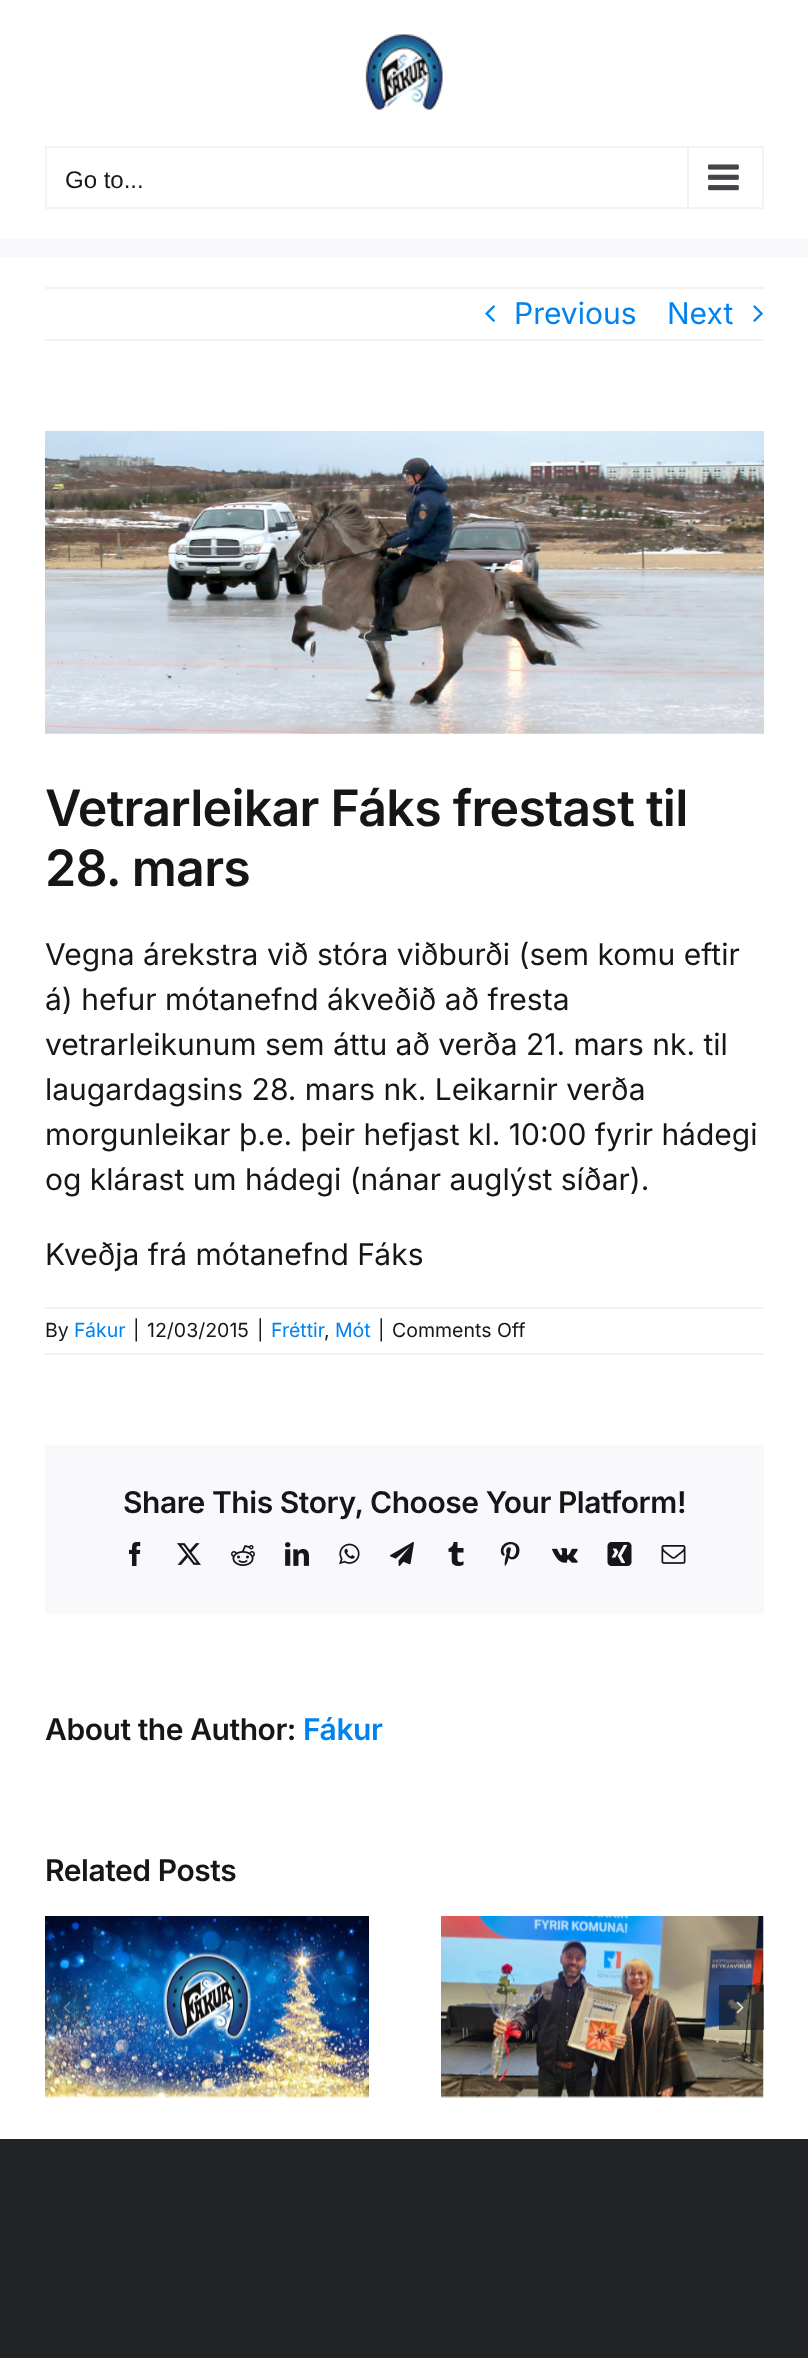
<?xml version="1.0" encoding="UTF-8"?>
<svg xmlns="http://www.w3.org/2000/svg" width="808" height="2358">
    <rect width="100%" height="100%" fill="#FFFFFF"/>
    <image x="365" y="34" width="78" height="76" href="img_01.png"/>
    <rect x="46" y="147" width="717" height="61" fill="none" stroke="#F2F3F5" stroke-width="2"/>
    <text x="65" y="188" font-family="Liberation Sans" font-size="24" fill="#141617">Go to...</text>
    <rect x="687" y="147" width="2" height="60" fill="#F2F3F5"/>
    <image x="708" y="164" width="31" height="27" href="img_02.png"/>
    <rect x="0" y="239" width="808" height="18" fill="#F9F9FB"/>
    <rect x="45" y="287" width="719" height="2" fill="#F2F3F5"/>
    <rect x="45" y="339" width="719" height="2" fill="#F2F3F5"/>
    <image x="485" y="305" width="10" height="17" href="img_03.png"/>
    <text x="514" y="324" font-family="Inter" font-size="30" fill="#0083EF">Previous</text>
    <text x="667" y="324" font-family="Inter" font-size="30" fill="#0083EF">Next</text>
    <image x="753" y="305" width="10" height="17" href="img_04.png"/>
    <image x="45" y="431" width="719" height="303" href="img_05.png"/>
    <text font-family="Inter" font-size="50.1" font-weight="600" letter-spacing="-0.75" fill="#141617">
        <tspan x="45" y="826">Vetrarleikar Fáks frestast til</tspan>
        <tspan x="45" y="886">28. mars</tspan>
    </text>
    <text font-family="Inter" font-size="30" fill="#141617">
        <tspan x="45" y="965">Vegna árekstra við stóra viðburði (sem komu eftir</tspan>
        <tspan x="45" y="1010">á) hefur mótanefnd ákveðið að fresta</tspan>
        <tspan x="45" y="1055">vetrarleikunum sem áttu að verða 21. mars nk. til</tspan>
        <tspan x="45" y="1100">laugardagsins 28. mars nk. Leikarnir verða</tspan>
        <tspan x="45" y="1145">morgunleikar þ.e. þeir hefjast kl. 10:00 fyrir hádegi</tspan>
        <tspan x="45" y="1190">og klárast um hádegi (nánar auglýst síðar).</tspan>
    </text>
    <text x="45" y="1265" font-family="Inter" font-size="30" fill="#141617">Kveðja frá mótanefnd Fáks</text>
    <rect x="45" y="1307" width="719" height="2" fill="#F2F3F5"/>
    <rect x="45" y="1353" width="719" height="2" fill="#F2F3F5"/>
    <text x="45" y="1337" font-family="Inter" font-size="19.5" fill="#141617">By</text>
    <text x="74" y="1337" font-family="Inter" font-size="19.5" fill="#0083EF">Fákur</text>
    <text x="133" y="1337" font-family="Inter" font-size="19.5" fill="#141617">|</text>
    <text x="147" y="1337" font-family="Inter" font-size="19.5" fill="#141617">12/03/2015</text>
    <text x="257" y="1337" font-family="Inter" font-size="19.5" fill="#141617">|</text>
    <text x="271" y="1337" font-family="Inter" font-size="19.5" fill="#0083EF">Fréttir</text>
    <text x="324" y="1337" font-family="Inter" font-size="19.5" fill="#141617">,</text>
    <text x="335" y="1337" font-family="Inter" font-size="19.5" fill="#0083EF">Mót</text>
    <text x="378" y="1337" font-family="Inter" font-size="19.5" fill="#141617">|</text>
    <text x="392" y="1337" font-family="Inter" font-size="19.5" fill="#141617">Comments Off</text>
    <rect x="45" y="1445" width="719" height="169" fill="#F9F9FB"/>
    <text x="123" y="1513" font-family="Inter" font-size="30" font-weight="600" letter-spacing="-0.45" fill="#141617">Share This Story, Choose Your Platform!</text>
    <image x="129" y="1542" width="12" height="24" href="img_06.png"/>
    <image x="177" y="1543" width="24" height="22" href="img_07.png"/>
    <image x="231" y="1545" width="24" height="21" href="img_08.png"/>
    <image x="285" y="1542" width="24" height="24" href="img_09.png"/>
    <image x="339" y="1543" width="21" height="22" href="img_10.png"/>
    <image x="390" y="1542" width="24" height="24" href="img_11.png"/>
    <image x="448" y="1542" width="16" height="24" href="img_12.png"/>
    <image x="500" y="1542" width="20" height="24" href="img_13.png"/>
    <image x="552" y="1548" width="26" height="15" href="img_14.png"/>
    <image x="607" y="1542" width="25" height="24" href="img_15.png"/>
    <image x="661" y="1545" width="25" height="19" href="img_16.png"/>
    <text x="45" y="1740" font-family="Inter" font-size="30" font-weight="600" letter-spacing="-0.45" fill="#141617">About the Author:</text>
    <text x="303" y="1740" font-family="Inter" font-size="30" font-weight="600" letter-spacing="-0.45" fill="#0083EF">Fákur</text>
    <text x="45" y="1881" font-family="Inter" font-size="30" font-weight="600" letter-spacing="-0.45" fill="#141617">Related Posts</text>
    <image x="45" y="1916" width="324" height="182" href="img_17.png"/>
    <image x="441" y="1916" width="323" height="182" href="img_18.png"/>
    <rect x="45" y="1985" width="45" height="45" fill="#131516" fill-opacity="0.24"/>
    <image x="63" y="2001" width="8" height="13" href="img_19.png"/>
    <rect x="719" y="1985" width="45" height="45" fill="#131516" fill-opacity="0.56"/>
    <image x="736" y="2001" width="8" height="13" href="img_20.png"/>
    <rect x="0" y="2139" width="808" height="219" fill="#212326"/>
</svg>
